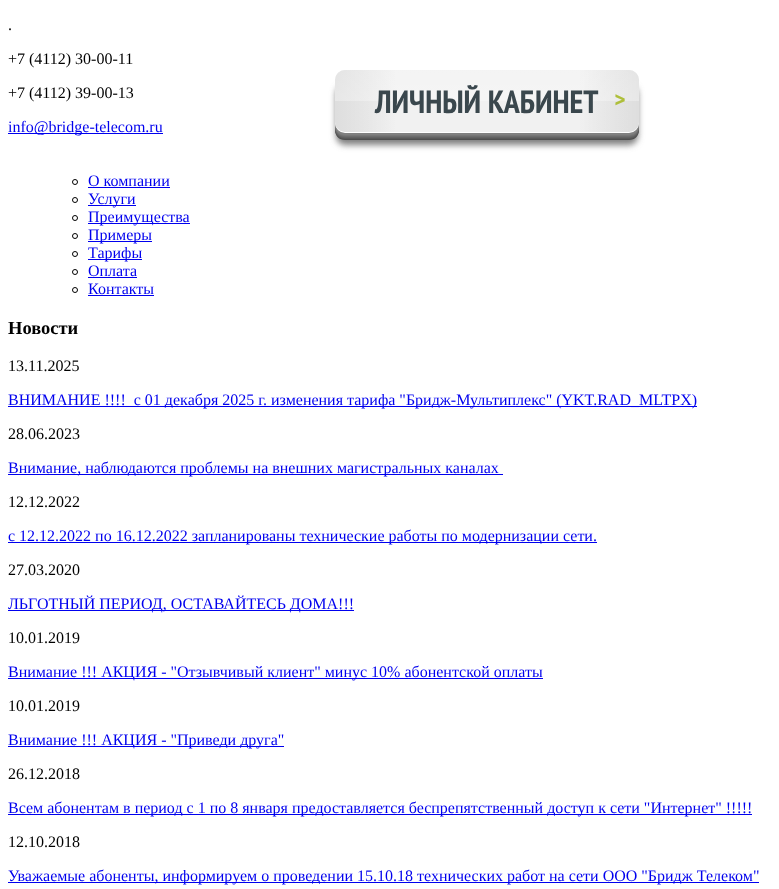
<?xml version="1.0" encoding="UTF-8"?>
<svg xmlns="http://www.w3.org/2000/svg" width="779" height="889">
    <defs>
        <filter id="blur1" x="-50%" y="-200%" width="200%" height="500%"><feGaussianBlur stdDeviation="3"/></filter>
        <filter id="blur2" x="-50%" y="-200%" width="200%" height="500%"><feGaussianBlur stdDeviation="0.5"/></filter>
        <linearGradient id="g1" gradientUnits="userSpaceOnUse" x1="335" y1="70" x2="639" y2="70"><stop offset="0" stop-color="#FFFFFF" stop-opacity="0"/><stop offset="0.2" stop-color="#FFFFFF" stop-opacity="0.5"/><stop offset="0.8" stop-color="#FFFFFF" stop-opacity="0.5"/><stop offset="1" stop-color="#FFFFFF" stop-opacity="0"/></linearGradient>
        <linearGradient id="g2" gradientUnits="userSpaceOnUse" x1="335" y1="70" x2="639" y2="70"><stop offset="0" stop-color="#D2D2D2" stop-opacity="0.3"/><stop offset="0.2" stop-color="#D2D2D2" stop-opacity="0"/><stop offset="0.8" stop-color="#D2D2D2" stop-opacity="0"/><stop offset="1" stop-color="#D2D2D2" stop-opacity="0.3"/></linearGradient>
        <linearGradient id="g3" gradientUnits="userSpaceOnUse" x1="335" y1="132" x2="335" y2="70"><stop offset="0.5" stop-color="#FFFFFF" stop-opacity="0"/><stop offset="0.5" stop-color="#FFFFFF" stop-opacity="0.3"/><stop offset="1" stop-color="#FFFFFF" stop-opacity="0.2"/></linearGradient>
    </defs>
    <rect width="100%" height="100%" fill="#FFFFFF"/>
    <text x="8" y="30" font-family="Liberation Serif" font-size="16" fill="#000000">.</text>
    <text x="8" y="64" font-family="Liberation Serif" font-size="16" fill="#000000">+7 (4112) 30-00-11</text>
    <text x="8" y="98" font-family="Liberation Serif" font-size="16" fill="#000000">+7 (4112) 39-00-13</text>
    <rect x="8" y="133" width="155" height="1" fill="#0000EE"/>
    <text x="8" y="132" font-family="Liberation Serif" font-size="16" fill="#0000EE">info@bridge-telecom.ru</text>
    <rect x="336" y="85" width="302" height="60" rx="9" fill="#808080" filter="url(#blur1)"/>
    <path d="M 335 122 V 130 C 335 136 339 140 345 140 H 629 C 635 140 639 136 639 130 V 122 C 639 128 635 132 629 132 H 345 C 339 132 335 128 335 122 Z" fill="#4E4E4E"/>
    <path d="M 335 122 V 129 C 335 135 339 139 345 139 H 629 C 635 139 639 135 639 129 V 122 C 639 128 635 132 629 132 H 345 C 339 132 335 128 335 122 Z" fill="#585858"/>
    <path d="M 335 122 V 128 C 335 134 339 138 345 138 H 629 C 635 138 639 134 639 128 V 122 C 639 128 635 132 629 132 H 345 C 339 132 335 128 335 122 Z" fill="#626262"/>
    <path d="M 335 122 V 127 C 335 133 339 137 345 137 H 629 C 635 137 639 133 639 127 V 122 C 639 128 635 132 629 132 H 345 C 339 132 335 128 335 122 Z" fill="#6C6C6C"/>
    <path d="M 335 122 V 126 C 335 132 339 136 345 136 H 629 C 635 136 639 132 639 126 V 122 C 639 128 635 132 629 132 H 345 C 339 132 335 128 335 122 Z" fill="#767676"/>
    <path d="M 335 122 V 125 C 335 131 339 135 345 135 H 629 C 635 135 639 131 639 125 V 122 C 639 128 635 132 629 132 H 345 C 339 132 335 128 335 122 Z" fill="#808080"/>
    <rect x="335" y="71" width="304" height="62" rx="10" fill="#FFFFFF" filter="url(#blur2)"/>
    <rect x="335" y="70" width="304" height="62" rx="10" fill="#E8E8E8"/>
    <rect x="335" y="70" width="304" height="62" rx="10" fill="#D2D2D1" fill-opacity="0.2"/>
    <rect x="338" y="70" width="298" height="62" fill="url(#g1)"/>
    <rect x="335" y="70" width="304" height="62" rx="10" fill="url(#g2)"/>
    <rect x="335" y="70" width="304" height="62" rx="10" fill="url(#g3)"/>
    <text x="375" y="113" font-family="PT Sans Narrow" font-size="32" font-weight="700" fill="#3A474D">ЛИЧНЫЙ КАБИНЕТ</text>
    <text x="615" y="107" font-family="Cabin" font-size="26" font-weight="700" fill="#AEBF3B">&gt;</text>
    <circle cx="75" cy="182" r="2.5" fill="none" stroke="#000000"/>
    <text x="88" y="186" font-family="Liberation Serif" font-size="16" fill="#0000EE">О компании</text>
    <rect x="88" y="187" width="82" height="1" fill="#0000EE"/>
    <circle cx="75" cy="200" r="2.5" fill="none" stroke="#000000"/>
    <rect x="88" y="205" width="48" height="1" fill="#0000EE"/>
    <text x="88" y="204" font-family="Liberation Serif" font-size="16" fill="#0000EE">Услуги</text>
    <circle cx="75" cy="218" r="2.5" fill="none" stroke="#000000"/>
    <rect x="88" y="223" width="102" height="1" fill="#0000EE"/>
    <text x="88" y="222" font-family="Liberation Serif" font-size="16" fill="#0000EE">Преимущества</text>
    <circle cx="75" cy="236" r="2.5" fill="none" stroke="#000000"/>
    <rect x="88" y="241" width="64" height="1" fill="#0000EE"/>
    <text x="88" y="240" font-family="Liberation Serif" font-size="16" fill="#0000EE">Примеры</text>
    <circle cx="75" cy="254" r="2.5" fill="none" stroke="#000000"/>
    <rect x="88" y="259" width="54" height="1" fill="#0000EE"/>
    <text x="88" y="258" font-family="Liberation Serif" font-size="16" fill="#0000EE">Тарифы</text>
    <circle cx="75" cy="272" r="2.5" fill="none" stroke="#000000"/>
    <text x="88" y="276" font-family="Liberation Serif" font-size="16" fill="#0000EE">Оплата</text>
    <rect x="88" y="277" width="49" height="1" fill="#0000EE"/>
    <circle cx="75" cy="290" r="2.5" fill="none" stroke="#000000"/>
    <text x="88" y="294" font-family="Liberation Serif" font-size="16" fill="#0000EE">Контакты</text>
    <rect x="88" y="295" width="66" height="1" fill="#0000EE"/>
    <text x="8" y="334" font-family="Liberation Serif" font-size="18.5" font-weight="700" fill="#000000">Новости</text>
    <text x="8" y="371" font-family="Liberation Serif" font-size="16" fill="#000000">13.11.2025</text>
    <rect x="8" y="406" width="689" height="1" fill="#0000EE"/>
    <text x="8" y="405" font-family="Liberation Serif" font-size="16" fill="#0000EE" xml:space="preserve">ВНИМАНИЕ !!!!  с 01 декабря 2025 г. изменения тарифа "Бридж-Мультиплекс" (YKT.RAD_MLTPX)</text>
    <text x="8" y="439" font-family="Liberation Serif" font-size="16" fill="#000000">28.06.2023</text>
    <rect x="8" y="474" width="495" height="1" fill="#0000EE"/>
    <text x="8" y="473" font-family="Liberation Serif" font-size="16" fill="#0000EE">Внимание, наблюдаются проблемы на внешних магистральных каналах</text>
    <text x="8" y="507" font-family="Liberation Serif" font-size="16" fill="#000000">12.12.2022</text>
    <rect x="8" y="542" width="589" height="1" fill="#0000EE"/>
    <text x="8" y="541" font-family="Liberation Serif" font-size="16" fill="#0000EE">с 12.12.2022 по 16.12.2022 запланированы технические работы по модернизации сети.</text>
    <text x="8" y="575" font-family="Liberation Serif" font-size="16" fill="#000000">27.03.2020</text>
    <rect x="8" y="610" width="346" height="1" fill="#0000EE"/>
    <text x="8" y="609" font-family="Liberation Serif" font-size="16" fill="#0000EE">ЛЬГОТНЫЙ ПЕРИОД, ОСТАВАЙТЕСЬ ДОМА!!!</text>
    <text x="8" y="643" font-family="Liberation Serif" font-size="16" fill="#000000">10.01.2019</text>
    <rect x="8" y="678" width="535" height="1" fill="#0000EE"/>
    <text x="8" y="677" font-family="Liberation Serif" font-size="16" fill="#0000EE">Внимание !!! АКЦИЯ - "Отзывчивый клиент" минус 10% абонентской оплаты</text>
    <text x="8" y="711" font-family="Liberation Serif" font-size="16" fill="#000000">10.01.2019</text>
    <rect x="8" y="746" width="276" height="1" fill="#0000EE"/>
    <text x="8" y="745" font-family="Liberation Serif" font-size="16" fill="#0000EE">Внимание !!! АКЦИЯ - "Приведи друга"</text>
    <text x="8" y="779" font-family="Liberation Serif" font-size="16" fill="#000000">26.12.2018</text>
    <rect x="8" y="814" width="744" height="1" fill="#0000EE"/>
    <text x="8" y="813" font-family="Liberation Serif" font-size="16" fill="#0000EE">Всем абонентам в период с 1 по 8 января предоставляется беспрепятственный доступ к сети "Интернет" !!!!!</text>
    <text x="8" y="847" font-family="Liberation Serif" font-size="16" fill="#000000">12.10.2018</text>
    <rect x="8" y="882" width="751" height="1" fill="#0000EE"/>
    <text x="8" y="881" font-family="Liberation Serif" font-size="16" fill="#0000EE">Уважаемые абоненты, информируем о проведении 15.10.18 технических работ на сети ООО "Бридж Телеком"</text>
</svg>
